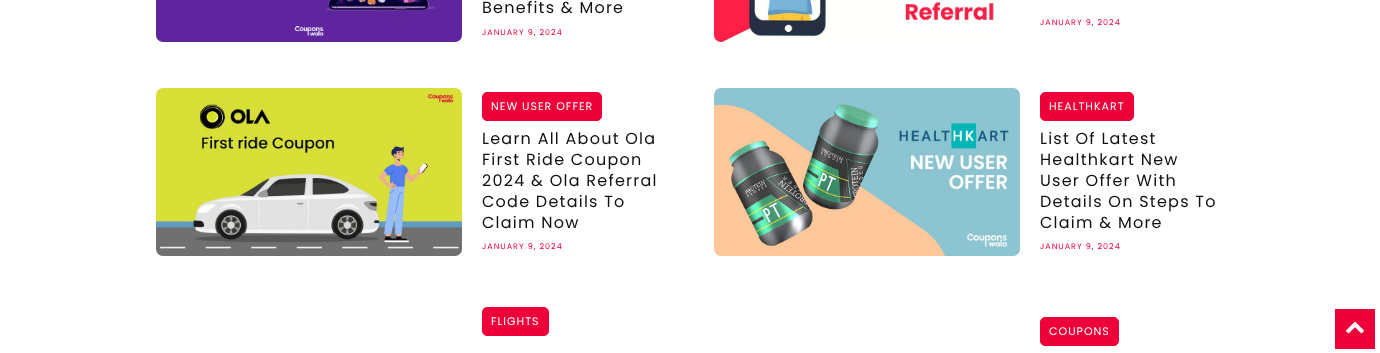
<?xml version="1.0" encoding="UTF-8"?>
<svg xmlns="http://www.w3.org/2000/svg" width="1380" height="353">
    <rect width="100%" height="100%" fill="#FFFFFF"/>
    <image x="156" y="0" width="306" height="42" href="img_01.png"/>
    <text x="482" y="13" font-family="Poppins" font-size="16" letter-spacing="1.25" fill="#111111">Benefits &amp; More</text>
    <text x="482" y="35" font-family="Poppins" font-size="8" letter-spacing="1" fill="#EE0039">JANUARY 9, 2024</text>
    <image x="714" y="0" width="281" height="42" href="img_02.png"/>
    <text x="1040" y="25" font-family="Poppins" font-size="8" letter-spacing="1" fill="#EE0039">JANUARY 9, 2024</text>
    <image x="156" y="88" width="306" height="168" href="img_03.png"/>
    <rect x="482.5" y="92.5" width="119" height="28" rx="4.5" fill="#EE0039" stroke="#EE0039"/>
    <text x="491" y="110" font-family="Poppins" font-size="11" letter-spacing="1" fill="#FFFFFF">NEW USER OFFER</text>
    <text font-family="Poppins" font-size="16" letter-spacing="1.25" fill="#111111">
        <tspan x="482" y="144">Learn All About Ola</tspan>
        <tspan x="482" y="165">First Ride Coupon</tspan>
        <tspan x="482" y="186">2024 &amp; Ola Referral</tspan>
        <tspan x="482" y="207">Code Details To</tspan>
        <tspan x="482" y="228">Claim Now</tspan>
    </text>
    <text x="482" y="249" font-family="Poppins" font-size="8" letter-spacing="1" fill="#EE0039">JANUARY 9, 2024</text>
    <image x="714" y="88" width="306" height="168" href="img_04.png"/>
    <rect x="1040.5" y="92.5" width="93" height="28" rx="4.5" fill="#EE0039" stroke="#EE0039"/>
    <text x="1049" y="110" font-family="Poppins" font-size="11" letter-spacing="1" fill="#FFFFFF">HEALTHKART</text>
    <text font-family="Poppins" font-size="16" letter-spacing="1.25" fill="#111111">
        <tspan x="1040" y="144">List Of Latest</tspan>
        <tspan x="1040" y="165">Healthkart New</tspan>
        <tspan x="1040" y="186">User Offer With</tspan>
        <tspan x="1040" y="207">Details On Steps To</tspan>
        <tspan x="1040" y="228">Claim &amp; More</tspan>
    </text>
    <text x="1040" y="249" font-family="Poppins" font-size="8" letter-spacing="1" fill="#EE0039">JANUARY 9, 2024</text>
    <rect x="482.5" y="307.5" width="66" height="28" rx="4.5" fill="#EE0039" stroke="#EE0039"/>
    <text x="491" y="325" font-family="Poppins" font-size="11" letter-spacing="1" fill="#FFFFFF">FLIGHTS</text>
    <rect x="1040.5" y="317.5" width="78" height="28" rx="4.5" fill="#EE0039" stroke="#EE0039"/>
    <text x="1049" y="335" font-family="Poppins" font-size="11" letter-spacing="1" fill="#FFFFFF">COUPONS</text>
    <rect x="1335" y="309" width="40" height="40" fill="#EE0039"/>
    <image x="1346" y="321" width="18" height="13" href="img_05.png"/>
</svg>
